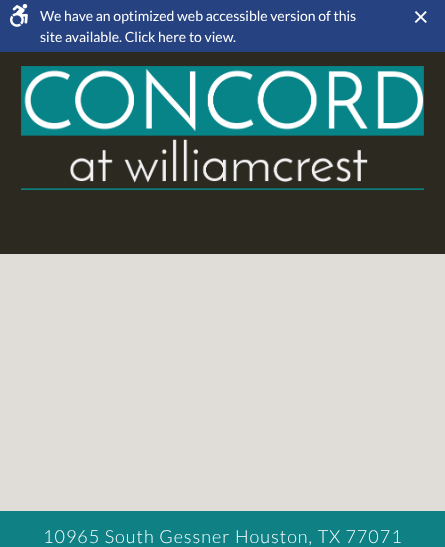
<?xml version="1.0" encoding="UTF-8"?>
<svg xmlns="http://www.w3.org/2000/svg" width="445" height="547">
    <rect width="100%" height="100%" fill="#E0DCD7"/>
    <rect x="0" y="0" width="445" height="52" fill="#264280"/>
    <image x="10" y="3" width="18" height="24" href="img_01.png"/>
    <text font-family="Lato" font-size="14" fill="#FFFFFF">
        <tspan x="40" y="21">We have an optimized web accessible version of this</tspan>
        <tspan x="40" y="42">site available. Click here to view.</tspan>
    </text>
    <text x="413" y="26" font-family="Lato" font-size="27" fill="#FFFFFF">×</text>
    <rect x="0" y="52" width="445" height="202" fill="#2C2921"/>
    <image x="21" y="66" width="403" height="124" href="img_02.png"/>
    <rect x="0" y="511" width="445" height="36" fill="#0F8185"/>
    <text x="43" y="543" font-family="Lato" font-size="18" font-weight="300" letter-spacing="1" fill="#FFFFFF">10965 South Gessner Houston, TX 77071</text>
</svg>
